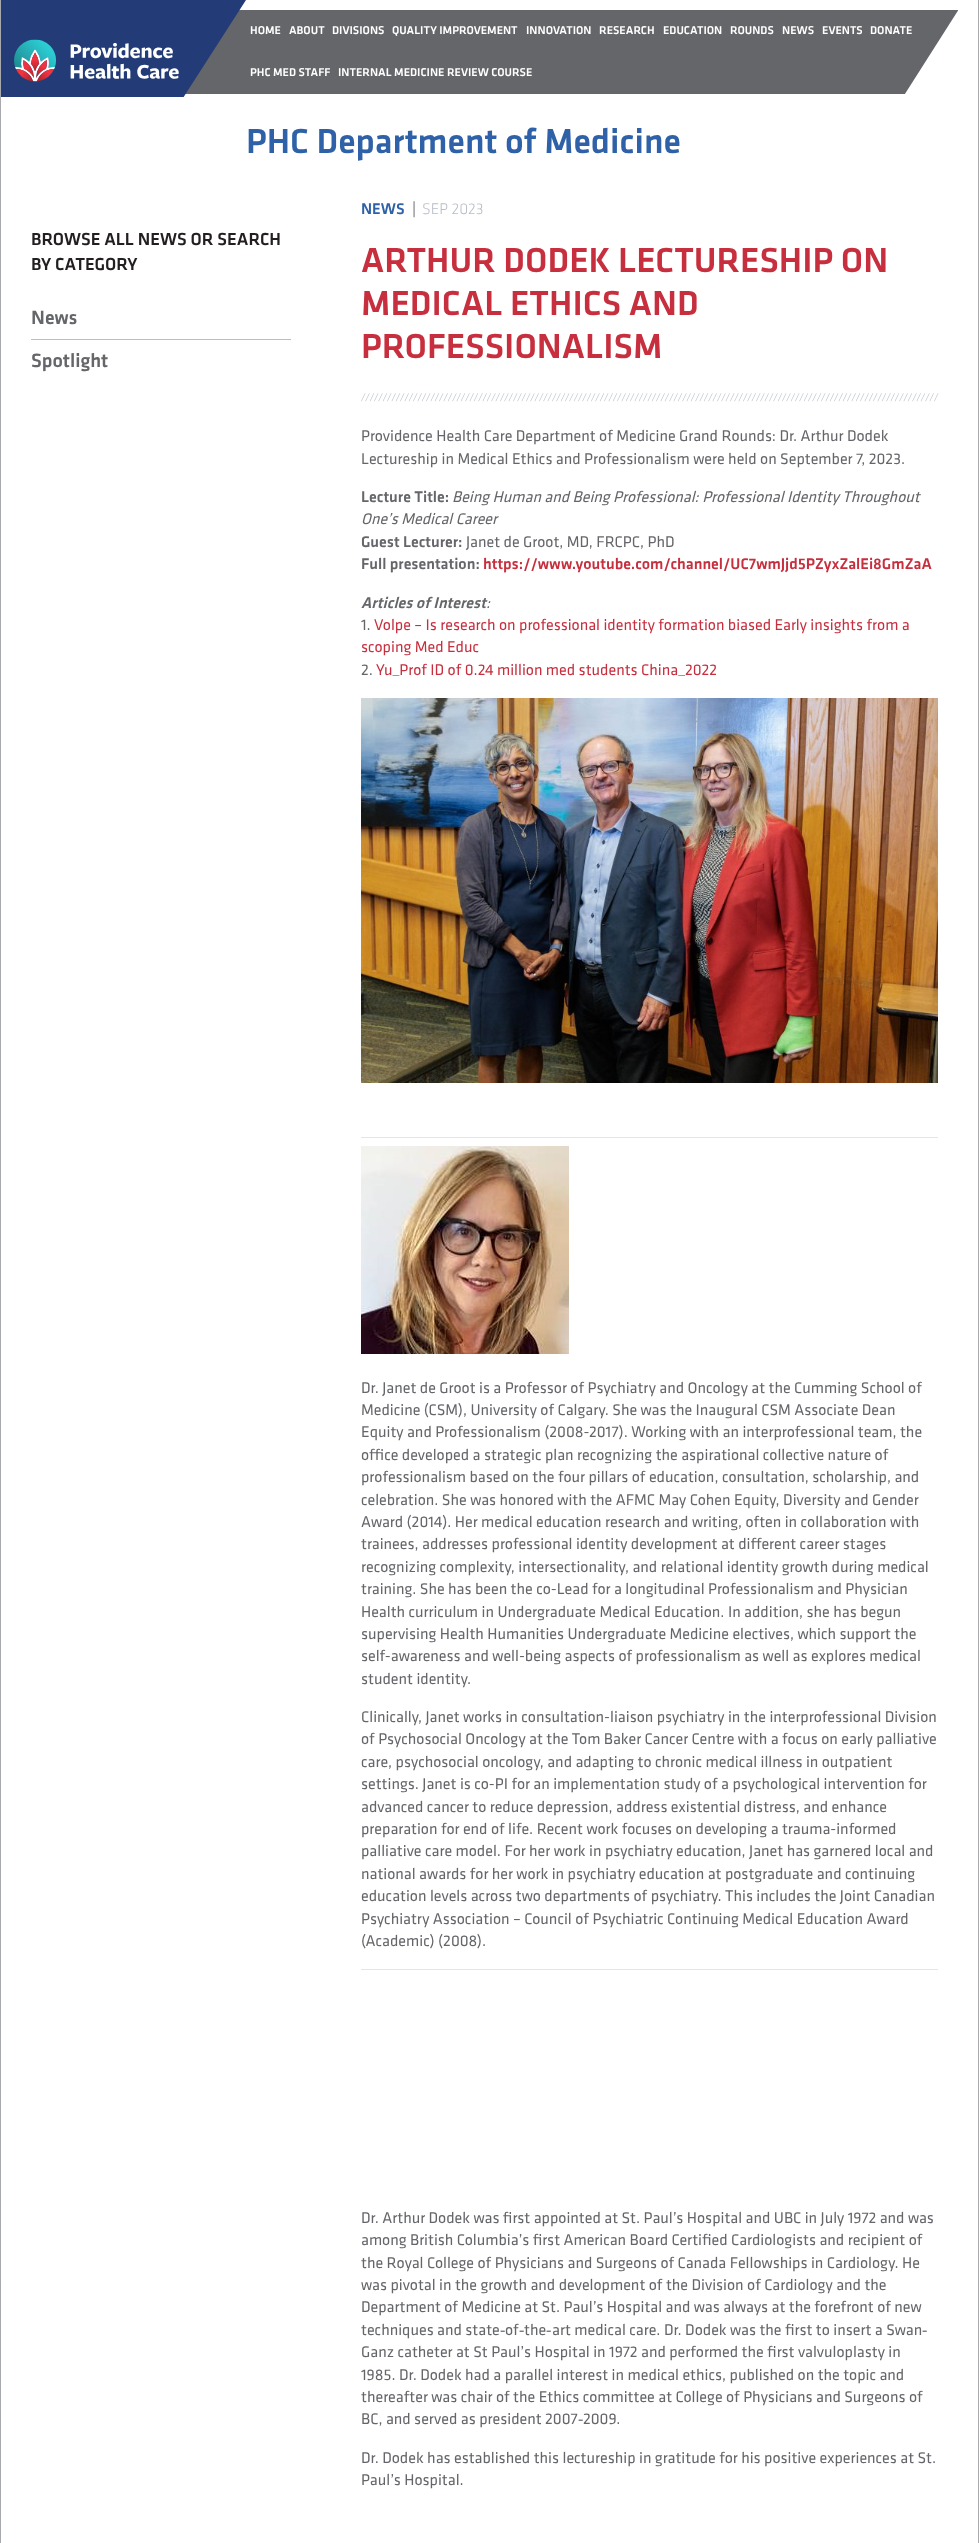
<?xml version="1.0" encoding="UTF-8"?>
<svg xmlns="http://www.w3.org/2000/svg" width="979" height="2543">
    <rect width="100%" height="100%" fill="#FFFFFF"/>
    <rect x="978" y="0" width="1" height="2543" fill="#A7A9AC"/>
    <rect x="0" y="0" width="1" height="2543" fill="#A7A9AC"/>
    <rect x="185" y="10" width="773" height="84" fill="#65666A"/>
    <image x="1" y="0" width="245" height="97" href="img_01.png"/>
    <text x="250" y="34" font-family="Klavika" font-size="11.75" font-weight="500" fill="#FFFFFF">HOME</text>
    <text x="289" y="34" font-family="Klavika" font-size="11.75" font-weight="500" fill="#FFFFFF">ABOUT</text>
    <text x="332" y="34" font-family="Klavika" font-size="11.75" font-weight="500" fill="#FFFFFF">DIVISIONS</text>
    <text x="392" y="34" font-family="Klavika" font-size="11.75" font-weight="500" fill="#FFFFFF">QUALITY IMPROVEMENT</text>
    <text x="526" y="34" font-family="Klavika" font-size="11.75" font-weight="500" fill="#FFFFFF">INNOVATION</text>
    <text x="599" y="34" font-family="Klavika" font-size="11.75" font-weight="500" fill="#FFFFFF">RESEARCH</text>
    <text x="663" y="34" font-family="Klavika" font-size="11.75" font-weight="500" fill="#FFFFFF">EDUCATION</text>
    <text x="730" y="34" font-family="Klavika" font-size="11.75" font-weight="500" fill="#FFFFFF">ROUNDS</text>
    <text x="782" y="34" font-family="Klavika" font-size="11.75" font-weight="500" fill="#FFFFFF">NEWS</text>
    <text x="822" y="34" font-family="Klavika" font-size="11.75" font-weight="500" fill="#FFFFFF">EVENTS</text>
    <path d="M 959 97 V 9 L 903 97 Z" fill="#FFFFFF"/>
    <text x="870" y="34" font-family="Klavika" font-size="11.75" font-weight="500" fill="#FFFFFF">DONATE</text>
    <text x="250" y="76" font-family="Klavika" font-size="11.75" font-weight="500" fill="#FFFFFF">PHC MED STAFF</text>
    <text x="338" y="76" font-family="Klavika" font-size="11.75" font-weight="500" fill="#FFFFFF">INTERNAL MEDICINE REVIEW COURSE</text>
    <text x="246" y="153" font-family="Klavika" font-size="36" font-weight="500" fill="#2E61A7">PHC Department of Medicine</text>
    <text font-family="Klavika" font-size="18" font-weight="500" fill="#231F20">
        <tspan x="31" y="245">BROWSE ALL NEWS OR SEARCH</tspan>
        <tspan x="31" y="270">BY CATEGORY</tspan>
    </text>
    <rect x="31" y="339" width="260" height="1" fill="#B8BEC6"/>
    <text x="31" y="324" font-family="Klavika" font-size="20" font-weight="500" fill="#65666A">News</text>
    <text x="31" y="367" font-family="Klavika" font-size="20" font-weight="500" fill="#65666A">Spotlight</text>
    <text x="361" y="214" font-family="Klavika" font-size="16" font-weight="500" fill="#2E61A7">NEWS</text>
    <text x="412" y="214" font-family="Klavika" font-size="16" fill="#65666A">|</text>
    <text x="422" y="214" font-family="Klavika" font-size="16" font-weight="300" fill="#B8BEC6">SEP 2023</text>
    <text font-family="Klavika" font-size="36" font-weight="500" fill="#C72F3E">
        <tspan x="361" y="272">ARTHUR DODEK LECTURESHIP ON</tspan>
        <tspan x="361" y="315">MEDICAL ETHICS AND</tspan>
        <tspan x="361" y="358">PROFESSIONALISM</tspan>
    </text>
    <text x="361" y="400" font-family="Klavika" font-size="10" font-weight="300" font-style="italic" fill="#B8BEC6">/////////////////////////////////////////////////////////////////////////////////////////////////////////////////////////////////////</text>
    <text font-family="Klavika" font-size="16" fill="#65666A">
        <tspan x="361" y="441">Providence Health Care Department of Medicine Grand Rounds: Dr. Arthur Dodek</tspan>
        <tspan x="361" y="464">Lectureship in Medical Ethics and Professionalism were held on September 7, 2023.</tspan>
    </text>
    <text x="361" y="502" font-family="Klavika" font-size="16" font-weight="500" fill="#65666A">Lecture Title:</text>
    <text x="452" y="502" font-family="Klavika" font-size="16" font-style="italic" fill="#65666A">Being Human and Being Professional: Professional Identity Throughout</text>
    <text x="361" y="524" font-family="Klavika" font-size="16" font-style="italic" fill="#65666A">One’s Medical Career</text>
    <text x="361" y="547" font-family="Klavika" font-size="16" font-weight="500" fill="#65666A">Guest Lecturer:</text>
    <text x="466" y="547" font-family="Klavika" font-size="16" fill="#65666A">Janet de Groot, MD, FRCPC, PhD</text>
    <text x="361" y="569" font-family="Klavika" font-size="16" font-weight="500" fill="#65666A">Full presentation:</text>
    <text x="483" y="569" font-family="Klavika" font-size="16" font-weight="500" fill="#C72F3E">https://www.youtube.com/channel/UC7wmJjd5PZyxZalEi8GmZaA</text>
    <text x="361" y="608" font-family="Klavika" font-size="16" font-weight="500" font-style="italic" fill="#65666A">Articles of Interest</text>
    <text x="486" y="608" font-family="Klavika" font-size="16" font-style="italic" fill="#65666A">:</text>
    <text x="361" y="630" font-family="Klavika" font-size="16" fill="#65666A">1.</text>
    <text x="374" y="630" font-family="Klavika" font-size="16" fill="#C72F3E">Volpe – Is research on professional identity formation biased Early insights from a</text>
    <text x="361" y="652" font-family="Klavika" font-size="16" fill="#C72F3E">scoping Med Educ</text>
    <text x="361" y="675" font-family="Klavika" font-size="16" fill="#65666A">2.</text>
    <text x="376" y="675" font-family="Klavika" font-size="16" fill="#C72F3E">Yu_Prof ID of 0.24 million med students China_2022</text>
    <image x="361" y="698" width="577" height="385" href="img_02.png"/>
    <rect x="361" y="1137" width="577" height="1" fill="#E5E5E6"/>
    <image x="361" y="1146" width="208" height="208" href="img_03.png"/>
    <text font-family="Klavika" font-size="16" fill="#65666A">
        <tspan x="361" y="1393">Dr. Janet de Groot is a Professor of Psychiatry and Oncology at the Cumming School of</tspan>
        <tspan x="361" y="1415">Medicine (CSM), University of Calgary. She was the Inaugural CSM Associate Dean</tspan>
        <tspan x="361" y="1437">Equity and Professionalism (2008-2017). Working with an interprofessional team, the</tspan>
        <tspan x="361" y="1460">office developed a strategic plan recognizing the aspirational collective nature of</tspan>
        <tspan x="361" y="1482">professionalism based on the four pillars of education, consultation, scholarship, and</tspan>
        <tspan x="361" y="1505">celebration. She was honored with the AFMC May Cohen Equity, Diversity and Gender</tspan>
        <tspan x="361" y="1527">Award (2014). Her medical education research and writing, often in collaboration with</tspan>
        <tspan x="361" y="1549">trainees, addresses professional identity development at different career stages</tspan>
        <tspan x="361" y="1572">recognizing complexity, intersectionality, and relational identity growth during medical</tspan>
        <tspan x="361" y="1594">training. She has been the co-Lead for a longitudinal Professionalism and Physician</tspan>
        <tspan x="361" y="1617">Health curriculum in Undergraduate Medical Education. In addition, she has begun</tspan>
        <tspan x="361" y="1639">supervising Health Humanities Undergraduate Medicine electives, which support the</tspan>
        <tspan x="361" y="1661">self-awareness and well-being aspects of professionalism as well as explores medical</tspan>
        <tspan x="361" y="1684">student identity.</tspan>
    </text>
    <text font-family="Klavika" font-size="16" fill="#65666A">
        <tspan x="361" y="1722">Clinically, Janet works in consultation-liaison psychiatry in the interprofessional Division</tspan>
        <tspan x="361" y="1744">of Psychosocial Oncology at the Tom Baker Cancer Centre with a focus on early palliative</tspan>
        <tspan x="361" y="1767">care, psychosocial oncology, and adapting to chronic medical illness in outpatient</tspan>
        <tspan x="361" y="1789">settings. Janet is co-PI for an implementation study of a psychological intervention for</tspan>
        <tspan x="361" y="1812">advanced cancer to reduce depression, address existential distress, and enhance</tspan>
        <tspan x="361" y="1834">preparation for end of life. Recent work focuses on developing a trauma-informed</tspan>
        <tspan x="361" y="1856">palliative care model. For her work in psychiatry education, Janet has garnered local and</tspan>
        <tspan x="361" y="1879">national awards for her work in psychiatry education at postgraduate and continuing</tspan>
        <tspan x="361" y="1901">education levels across two departments of psychiatry. This includes the Joint Canadian</tspan>
        <tspan x="361" y="1924">Psychiatry Association – Council of Psychiatric Continuing Medical Education Award</tspan>
        <tspan x="361" y="1946">(Academic) (2008).</tspan>
    </text>
    <rect x="361" y="1969" width="577" height="1" fill="#E5E5E6"/>
    <text font-family="Klavika" font-size="16" fill="#65666A">
        <tspan x="361" y="2223">Dr. Arthur Dodek was first appointed at St. Paul’s Hospital and UBC in July 1972 and was</tspan>
        <tspan x="361" y="2245">among British Columbia’s first American Board Certified Cardiologists and recipient of</tspan>
        <tspan x="361" y="2268">the Royal College of Physicians and Surgeons of Canada Fellowships in Cardiology. He</tspan>
        <tspan x="361" y="2290">was pivotal in the growth and development of the Division of Cardiology and the</tspan>
        <tspan x="361" y="2312">Department of Medicine at St. Paul’s Hospital and was always at the forefront of new</tspan>
        <tspan x="361" y="2335">techniques and state</tspan>
    </text>
    <text x="500" y="2335" font-family="Liberation Serif" font-size="16" fill="#65666A">‐</text>
    <text x="505" y="2335" font-family="Klavika" font-size="16" fill="#65666A">of</text>
    <text x="519" y="2335" font-family="Liberation Serif" font-size="16" fill="#65666A">‐</text>
    <text x="524" y="2335" font-family="Klavika" font-size="16" fill="#65666A">the</text>
    <text x="546" y="2335" font-family="Liberation Serif" font-size="16" fill="#65666A">‐</text>
    <text x="552" y="2335" font-family="Klavika" font-size="16" fill="#65666A">art medical care. Dr. Dodek was the first to insert a Swan</text>
    <text x="922" y="2335" font-family="Liberation Serif" font-size="16" fill="#65666A">‐</text>
    <text font-family="Klavika" font-size="16" fill="#65666A">
        <tspan x="361" y="2357">Ganz catheter at St Paul’s Hospital in 1972 and performed the first valvuloplasty in</tspan>
        <tspan x="361" y="2380">1985. Dr. Dodek had a parallel interest in medical ethics, published on the topic and</tspan>
        <tspan x="361" y="2402">thereafter was chair of the Ethics committee at College of Physicians and Surgeons of</tspan>
        <tspan x="361" y="2424">BC, and served as president 2007</tspan>
    </text>
    <text x="578" y="2424" font-family="Liberation Serif" font-size="16" fill="#65666A">‐</text>
    <text x="583" y="2424" font-family="Klavika" font-size="16" fill="#65666A">2009.</text>
    <text font-family="Klavika" font-size="16" fill="#65666A">
        <tspan x="361" y="2463">Dr. Dodek has established this lectureship in gratitude for his positive experiences at St.</tspan>
        <tspan x="361" y="2485">Paul’s Hospital.</tspan>
    </text>
</svg>
